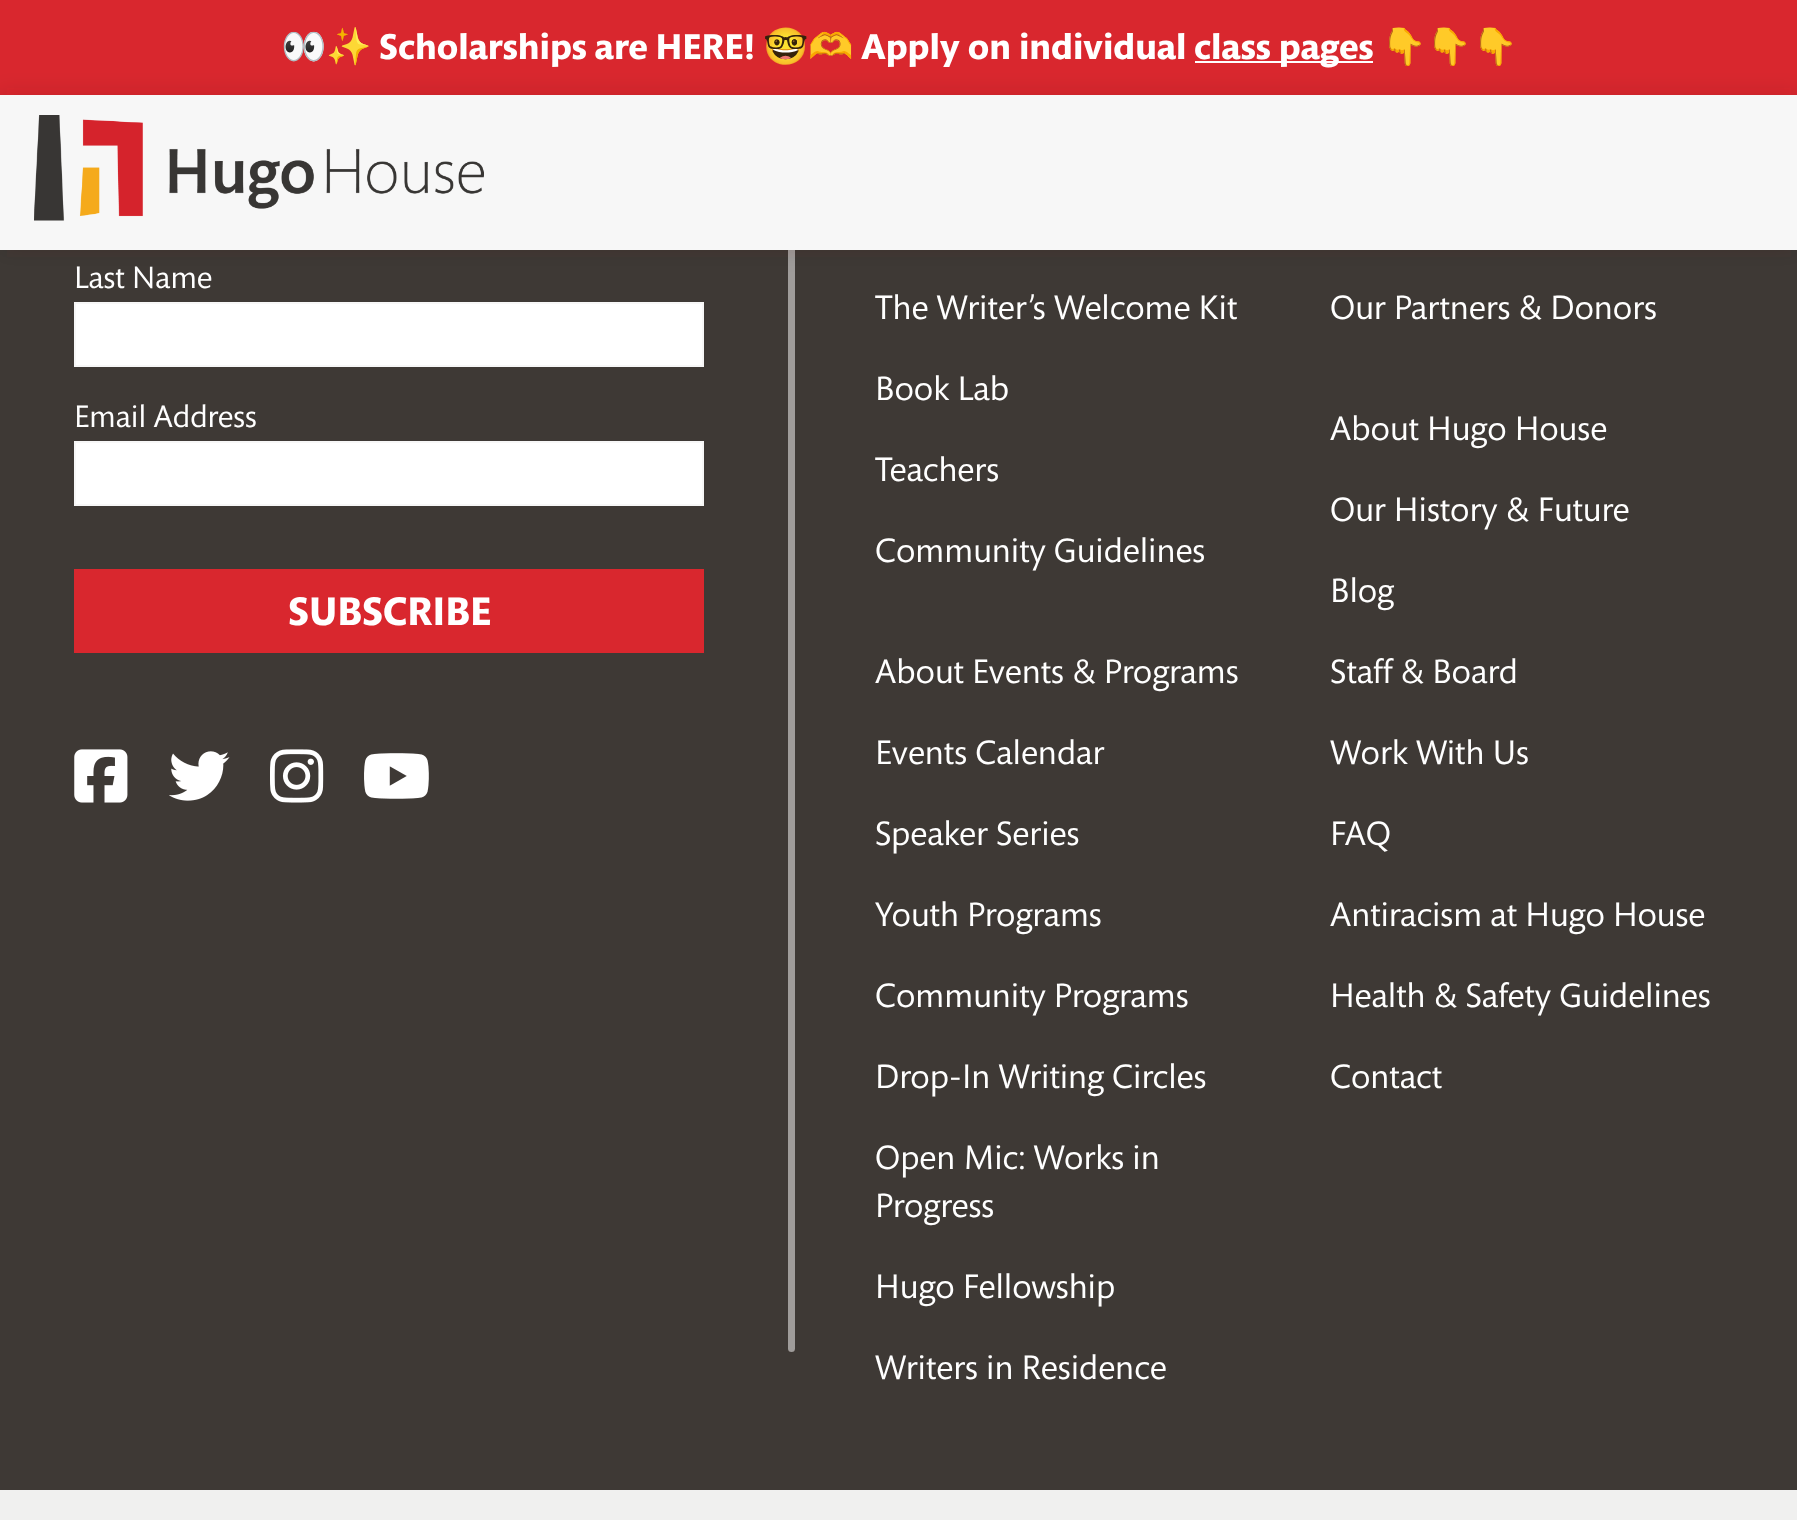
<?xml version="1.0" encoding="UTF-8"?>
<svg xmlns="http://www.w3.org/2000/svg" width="1797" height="1520">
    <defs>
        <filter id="blur1" x="-50%" y="-200%" width="200%" height="500%"><feGaussianBlur stdDeviation="11"/></filter>
    </defs>
    <rect width="100%" height="100%" fill="#3E3935"/>
    <rect x="788" y="9" width="7" height="1343" rx="3.5" fill="#9F9C9A"/>
    <rect x="0" y="0" width="1797" height="95" fill="#D9272E"/>
    <text x="281" y="59" font-family="Noto Color Emoji" font-size="36.5" fill="#FFFFFF">👀✨</text>
    <text x="379" y="59" font-family="'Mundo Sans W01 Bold'" font-size="36.5" font-weight="700" fill="#FFFFFF">Scholarships are HERE!</text>
    <text x="763" y="59" font-family="Noto Color Emoji" font-size="36.5" fill="#FFFFFF">🤓🫶</text>
    <text x="861" y="59" font-family="'Mundo Sans W01 Bold'" font-size="36.5" font-weight="700" fill="#FFFFFF">Apply on individual</text>
    <rect x="1195" y="61" width="178" height="2" fill="#FFFFFF"/>
    <text x="1194" y="59" font-family="'Mundo Sans W01 Bold'" font-size="36.5" font-weight="700" fill="#FFFFFF">class pages</text>
    <text x="1381" y="59" font-family="Noto Color Emoji" font-size="36.5" fill="#FFFFFF">👇👇👇</text>
    <rect x="0" y="95" width="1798" height="155" fill="#3E3935" fill-opacity="0.15" filter="url(#blur1)"/>
    <rect x="0" y="95" width="1797" height="155" fill="#F7F7F7"/>
    <image x="34" y="115" width="450" height="106" href="img_01.png"/>
    <text x="74" y="288" font-family="'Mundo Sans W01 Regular'" font-size="31.5" fill="#FFFFFF">Last Name</text>
    <rect x="75" y="303" width="628" height="63" fill="#FFFFFF" stroke="#F7F7F7" stroke-width="2"/>
    <text x="74" y="427" font-family="'Mundo Sans W01 Regular'" font-size="31.5" fill="#FFFFFF">Email Address</text>
    <rect x="75" y="442" width="628" height="63" fill="#FFFFFF" stroke="#F7F7F7" stroke-width="2"/>
    <rect x="74" y="569" width="630" height="84" fill="#D9272E"/>
    <text x="288" y="625" font-family="'Mundo Sans W01 Bold'" font-size="40.5" font-weight="700" fill="#FFFFFF">SUBSCRIBE</text>
    <image x="74" y="749" width="54" height="54" href="img_02.png"/>
    <image x="169" y="751" width="61" height="50" href="img_03.png"/>
    <image x="270" y="749" width="54" height="54" href="img_04.png"/>
    <image x="364" y="753" width="65" height="46" href="img_05.png"/>
    <text x="875" y="319" font-family="'Mundo Sans W01 Regular'" font-size="34.5" fill="#FFFFFF">The Writer’s Welcome Kit</text>
    <text x="875" y="400" font-family="'Mundo Sans W01 Regular'" font-size="34.5" fill="#FFFFFF">Book Lab</text>
    <text x="875" y="481" font-family="'Mundo Sans W01 Regular'" font-size="34.5" fill="#FFFFFF">Teachers</text>
    <text x="875" y="562" font-family="'Mundo Sans W01 Regular'" font-size="34.5" fill="#FFFFFF">Community Guidelines</text>
    <text x="875" y="683" font-family="'Mundo Sans W01 Regular'" font-size="34.5" fill="#FFFFFF">About Events &amp; Programs</text>
    <text x="875" y="764" font-family="'Mundo Sans W01 Regular'" font-size="34.5" fill="#FFFFFF">Events Calendar</text>
    <text x="875" y="845" font-family="'Mundo Sans W01 Regular'" font-size="34.5" fill="#FFFFFF">Speaker Series</text>
    <text x="875" y="926" font-family="'Mundo Sans W01 Regular'" font-size="34.5" fill="#FFFFFF">Youth Programs</text>
    <text x="875" y="1007" font-family="'Mundo Sans W01 Regular'" font-size="34.5" fill="#FFFFFF">Community Programs</text>
    <text x="875" y="1088" font-family="'Mundo Sans W01 Regular'" font-size="34.5" fill="#FFFFFF">Drop-In Writing Circles</text>
    <text font-family="'Mundo Sans W01 Regular'" font-size="34.5" fill="#FFFFFF">
        <tspan x="875" y="1169">Open Mic: Works in</tspan>
        <tspan x="875" y="1217">Progress</tspan>
    </text>
    <text x="875" y="1298" font-family="'Mundo Sans W01 Regular'" font-size="34.5" fill="#FFFFFF">Hugo Fellowship</text>
    <text x="875" y="1379" font-family="'Mundo Sans W01 Regular'" font-size="34.5" fill="#FFFFFF">Writers in Residence</text>
    <text x="1330" y="319" font-family="'Mundo Sans W01 Regular'" font-size="34.5" fill="#FFFFFF">Our Partners &amp; Donors</text>
    <text x="1330" y="440" font-family="'Mundo Sans W01 Regular'" font-size="34.5" fill="#FFFFFF">About Hugo House</text>
    <text x="1330" y="521" font-family="'Mundo Sans W01 Regular'" font-size="34.5" fill="#FFFFFF">Our History &amp; Future</text>
    <text x="1330" y="602" font-family="'Mundo Sans W01 Regular'" font-size="34.5" fill="#FFFFFF">Blog</text>
    <text x="1330" y="683" font-family="'Mundo Sans W01 Regular'" font-size="34.5" fill="#FFFFFF">Staff &amp; Board</text>
    <text x="1330" y="764" font-family="'Mundo Sans W01 Regular'" font-size="34.5" fill="#FFFFFF">Work With Us</text>
    <text x="1330" y="845" font-family="'Mundo Sans W01 Regular'" font-size="34.5" fill="#FFFFFF">FAQ</text>
    <text x="1330" y="926" font-family="'Mundo Sans W01 Regular'" font-size="34.5" fill="#FFFFFF">Antiracism at Hugo House</text>
    <text x="1330" y="1007" font-family="'Mundo Sans W01 Regular'" font-size="34.5" fill="#FFFFFF">Health &amp; Safety Guidelines</text>
    <text x="1330" y="1088" font-family="'Mundo Sans W01 Regular'" font-size="34.5" fill="#FFFFFF">Contact</text>
    <rect x="0" y="1490" width="1797" height="30" fill="#F0F0EF"/>
</svg>
